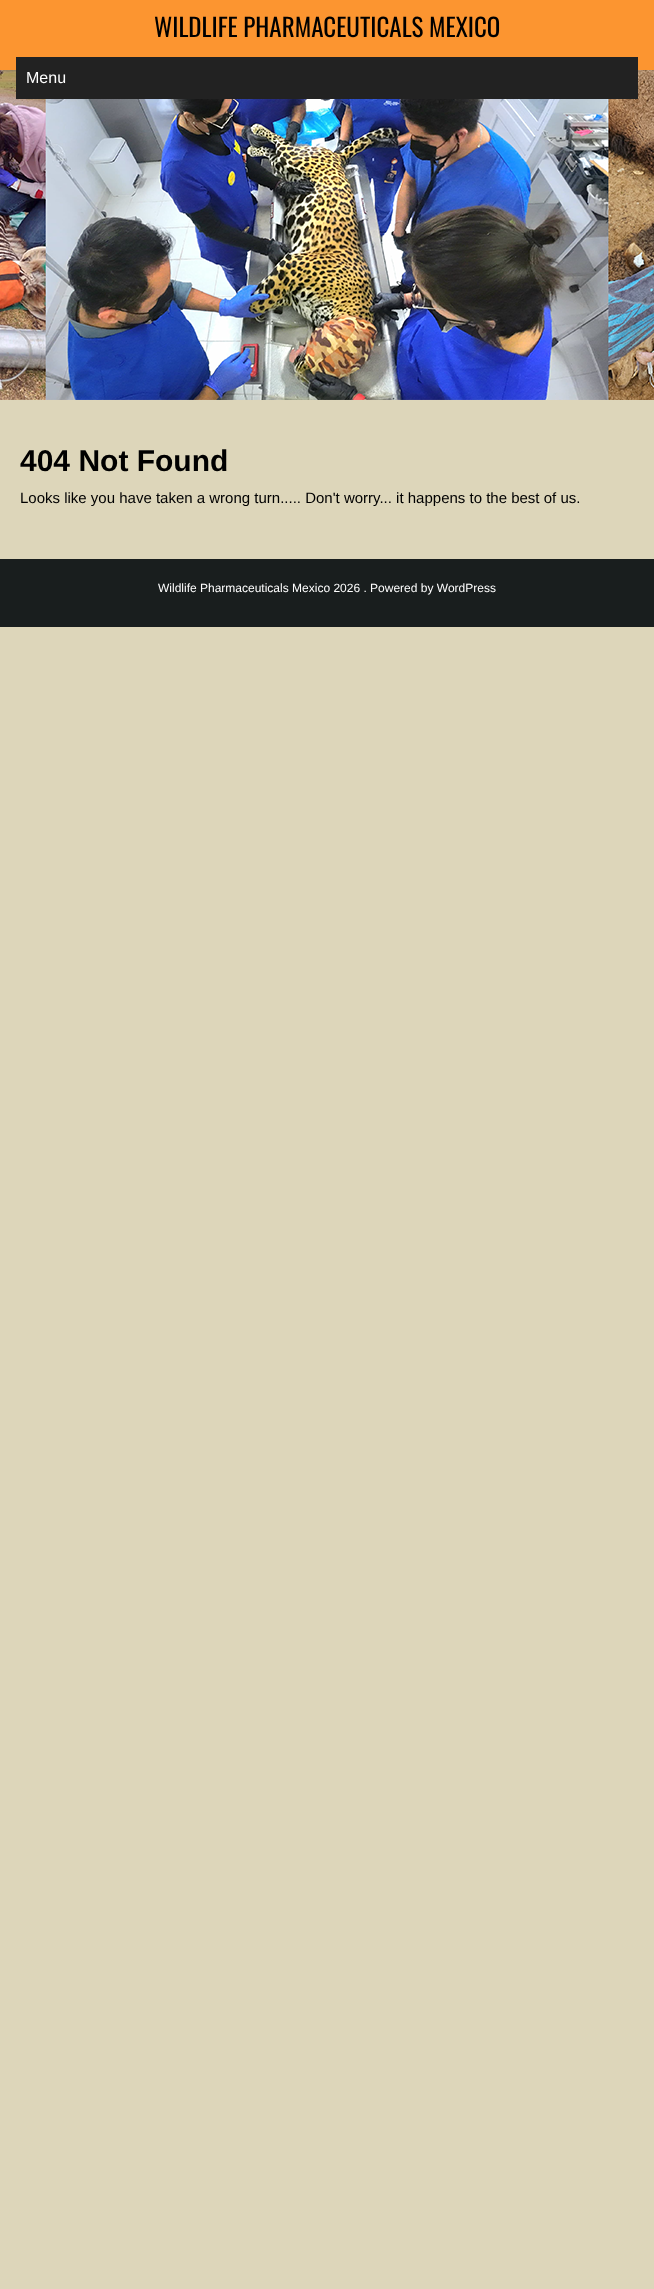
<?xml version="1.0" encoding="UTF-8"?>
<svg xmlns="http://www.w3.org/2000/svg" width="654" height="2289">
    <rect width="100%" height="100%" fill="#DDD6BA"/>
    <image x="0" y="70" width="654" height="330" href="img_01.png"/>
    <rect x="0" y="0" width="654" height="70" fill="#FC9530"/>
    <text x="154" y="37" font-family="Oswald" font-size="25" fill="#000000">WILDLIFE PHARMACEUTICALS MEXICO</text>
    <rect x="16" y="57" width="622" height="42" fill="#222222"/>
    <text x="26" y="83" font-family="Arimo" font-size="16" fill="#FFFFFF">Menu</text>
    <text x="20" y="471" font-family="Arimo" font-size="30" font-weight="700" fill="#000000">404 Not Found</text>
    <text x="20" y="503" font-family="Arimo" font-size="15" fill="#000000">Looks like you have taken a wrong turn..... Don't worry... it happens to the best of us.</text>
    <rect x="0" y="559" width="654" height="68" fill="#191E1E"/>
    <text x="158" y="592" font-family="Arimo" font-size="12" fill="#FFFFFF">Wildlife Pharmaceuticals Mexico 2026 . Powered by WordPress</text>
</svg>
